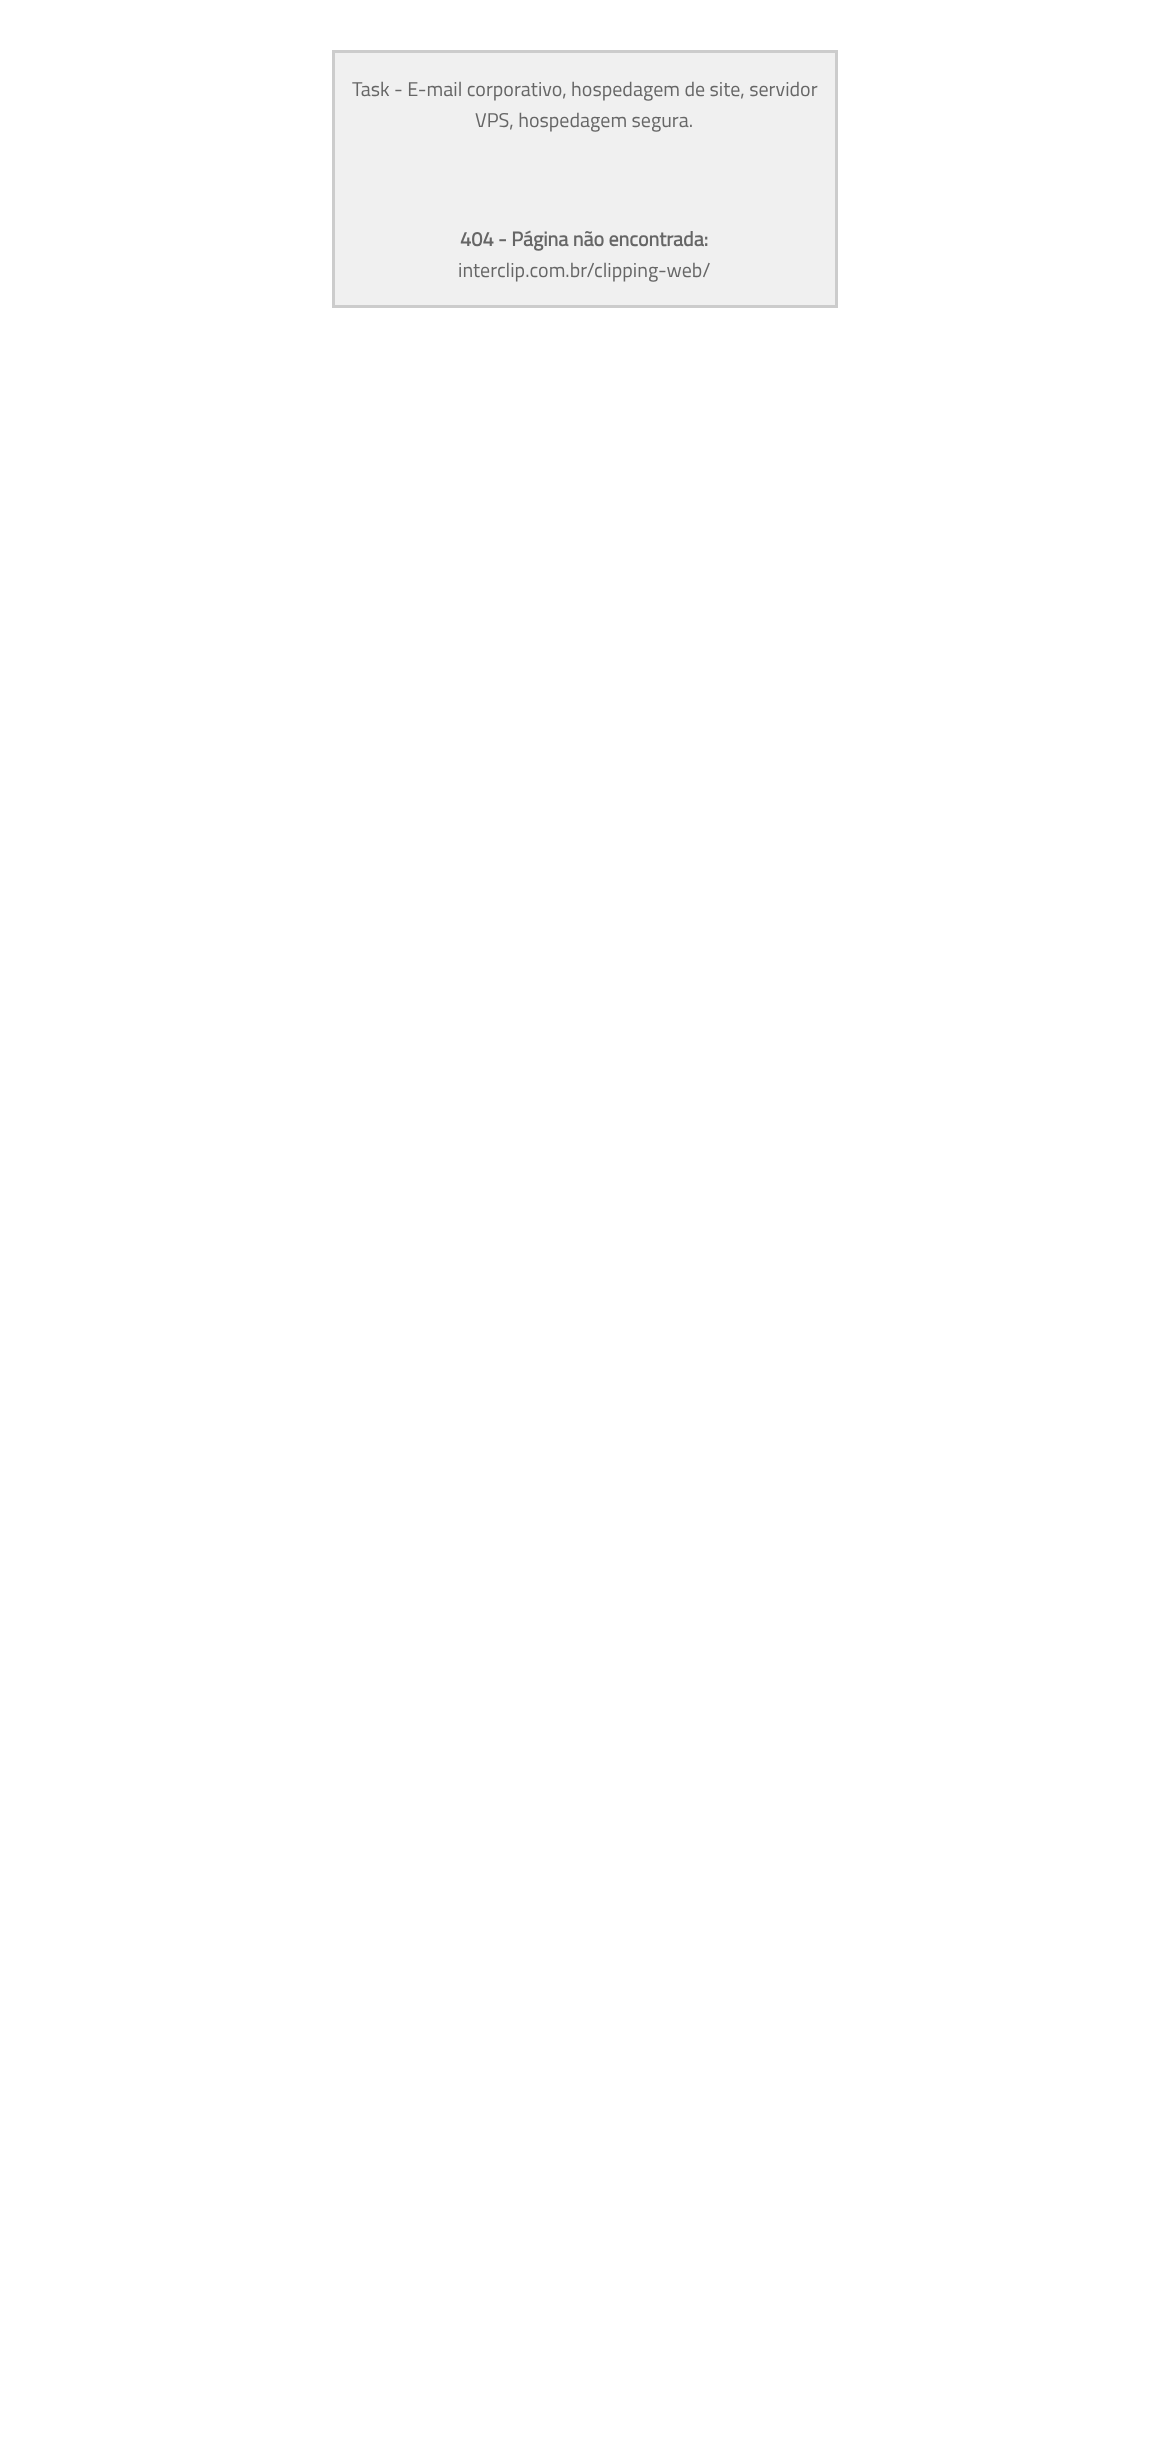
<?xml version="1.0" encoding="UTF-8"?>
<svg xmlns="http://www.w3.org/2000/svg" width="1169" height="2463">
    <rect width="100%" height="100%" fill="#FFFFFF"/>
    <rect x="333.5" y="51.5" width="503" height="255" fill="#F0F0F0" stroke="#CCCCCC" stroke-width="3"/>
    <text x="352" y="96" font-family="Titillium Web" font-size="20" fill="#666666">Task - E-mail corporativo, hospedagem de site, servidor</text>
    <text x="475" y="127" font-family="Titillium Web" font-size="20" fill="#666666">VPS, hospedagem segura.</text>
    <text x="460" y="246" font-family="Titillium Web" font-size="20" font-weight="700" fill="#666666">404 - Página não encontrada:</text>
    <text x="458" y="277" font-family="Titillium Web" font-size="20" fill="#666666">interclip.com.br/clipping-web/</text>
</svg>
